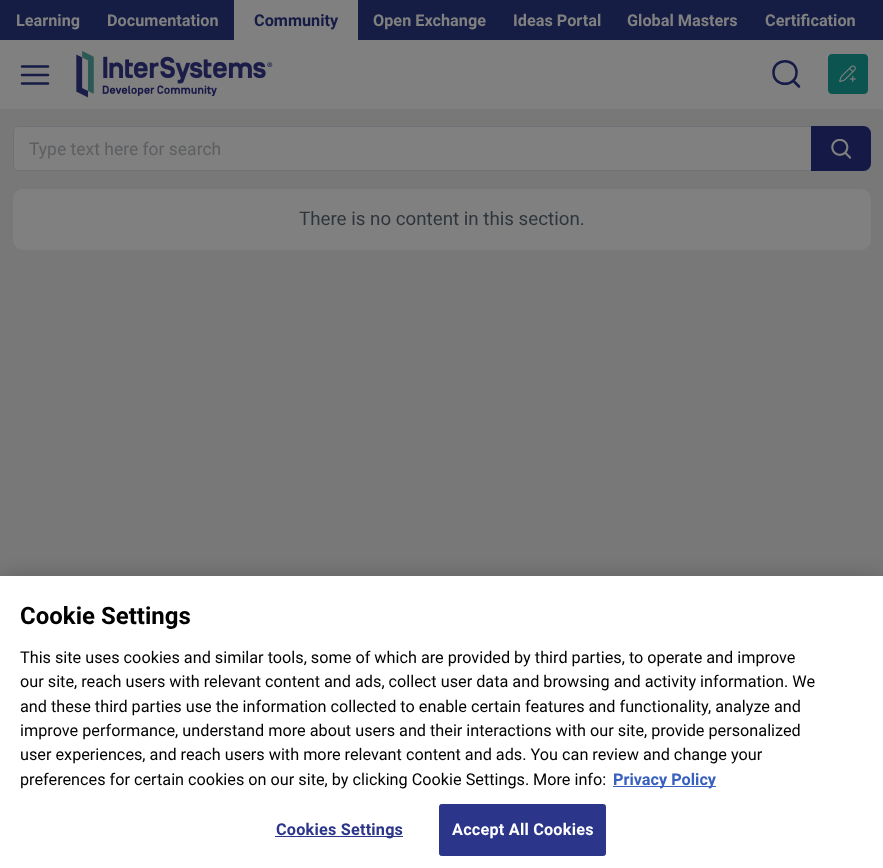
<?xml version="1.0" encoding="UTF-8"?>
<svg xmlns="http://www.w3.org/2000/svg" width="883" height="868">
    <defs>
        <filter id="blur1" x="-50%" y="-200%" width="200%" height="500%"><feGaussianBlur stdDeviation="11"/></filter>
    </defs>
    <rect width="100%" height="100%" fill="#787879"/>
    <rect x="0" y="40" width="883" height="69" fill="#808080"/>
    <rect x="0" y="0" width="883" height="40" fill="#151D44"/>
    <text x="16" y="26" font-family="Roboto" font-size="16.25" font-weight="700" fill="#808080">Learning</text>
    <text x="107" y="26" font-family="Roboto" font-size="16.25" font-weight="700" fill="#808080">Documentation</text>
    <rect x="234" y="0" width="124" height="40" fill="#808080"/>
    <text x="254" y="26" font-family="Roboto" font-size="16.25" font-weight="700" fill="#161B45">Community</text>
    <text x="373" y="26" font-family="Roboto" font-size="16.25" font-weight="700" fill="#808080">Open Exchange</text>
    <text x="513" y="26" font-family="Roboto" font-size="16.25" font-weight="700" fill="#808080">Ideas Portal</text>
    <text x="627" y="26" font-family="Roboto" font-size="16.25" font-weight="700" fill="#808080">Global Masters</text>
    <text x="765" y="26" font-family="Roboto" font-size="16.25" font-weight="700" fill="#808080">Certification</text>
    <path d="M 22 75 H 48 M 22 66.5 H 48 M 22 83.5 H 48" fill="none" stroke="#161B45" stroke-width="2.5" stroke-linecap="round" stroke-linejoin="round"/>
    <image x="76" y="51" width="197" height="47" href="img_01.png"/>
    <path d="M 799 86.5 L 793 80.5 M 796.5 72.5 C 796.5 87.5 773.5 87.5 773.5 72.5 C 773.5 57.5 796.5 57.5 796.5 72.5 Z" fill="none" stroke="#161B45" stroke-width="2.5" stroke-linecap="round" stroke-linejoin="round"/>
    <image x="828" y="54" width="40" height="40" href="img_02.png"/>
    <path d="M 17 126 H 865 C 868.5 126 871 128.5 871 132 V 165 C 871 168.5 868.5 171 865 171 H 17 C 15 171 13 169 13 167 V 130 C 13 128 15 126 17 126 Z" fill="#808080"/>
    <rect x="13.5" y="126.5" width="857" height="44" rx="4.5" fill="#808080" stroke="#6E7175"/>
    <text x="29" y="155" font-family="Roboto" font-size="17.5" fill="#5C5E60">Type text here for search</text>
    <path d="M 811 126 H 863 C 867.5 126 871 129.5 871 134 V 163 C 871 167.5 867.5 171 863 171 H 811 Z" fill="#141945"/>
    <image x="831" y="139" width="20" height="20" href="img_03.png"/>
    <rect x="13" y="189" width="858" height="61" rx="10" fill="#808080"/>
    <text x="299" y="225" font-family="Roboto" font-size="18.75" fill="#2F353C">There is no content in this section.</text>
    <rect x="0" y="576" width="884" height="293" fill="#000000" fill-opacity="0.2" filter="url(#blur1)"/>
    <rect x="0" y="576" width="883" height="292" fill="#FFFFFF"/>
    <text x="20" y="624" font-family="Roboto" font-size="24" font-weight="700" fill="#000000">Cookie Settings</text>
    <text font-family="Roboto" font-size="16.25" fill="#000000">
        <tspan x="20" y="663">This site uses cookies and similar tools, some of which are provided by third parties, to operate and improve</tspan>
        <tspan x="20" y="687">our site, reach users with relevant content and ads, collect user data and browsing and activity information. We</tspan>
        <tspan x="20" y="712">and these third parties use the information collected to enable certain features and functionality, analyze and</tspan>
        <tspan x="20" y="736">improve performance, understand more about users and their interactions with our site, provide personalized</tspan>
        <tspan x="20" y="760">user experiences, and reach users with more relevant content and ads. You can review and change your</tspan>
        <tspan x="20" y="785">preferences for certain cookies on our site, by clicking Cookie Settings.</tspan>
    </text>
    <text x="533" y="785" font-family="Roboto" font-size="16.25" fill="#000000">More info:</text>
    <rect x="613" y="786" width="103" height="1" fill="#3860BE"/>
    <text x="613" y="785" font-family="Roboto" font-size="16.25" font-weight="700" fill="#3860BE">Privacy Policy</text>
    <rect x="275" y="836" width="128" height="1" fill="#2B3589"/>
    <text x="276" y="835" font-family="Roboto" font-size="16.25" font-weight="700" letter-spacing="0.2" fill="#2B3589">Cookies Settings</text>
    <rect x="439.5" y="804.5" width="166" height="51" rx="2" fill="#2B3589" stroke="#2B3589"/>
    <text x="452" y="835" font-family="Roboto" font-size="16.25" font-weight="700" letter-spacing="0.2" fill="#FFFFFF">Accept All Cookies</text>
</svg>
